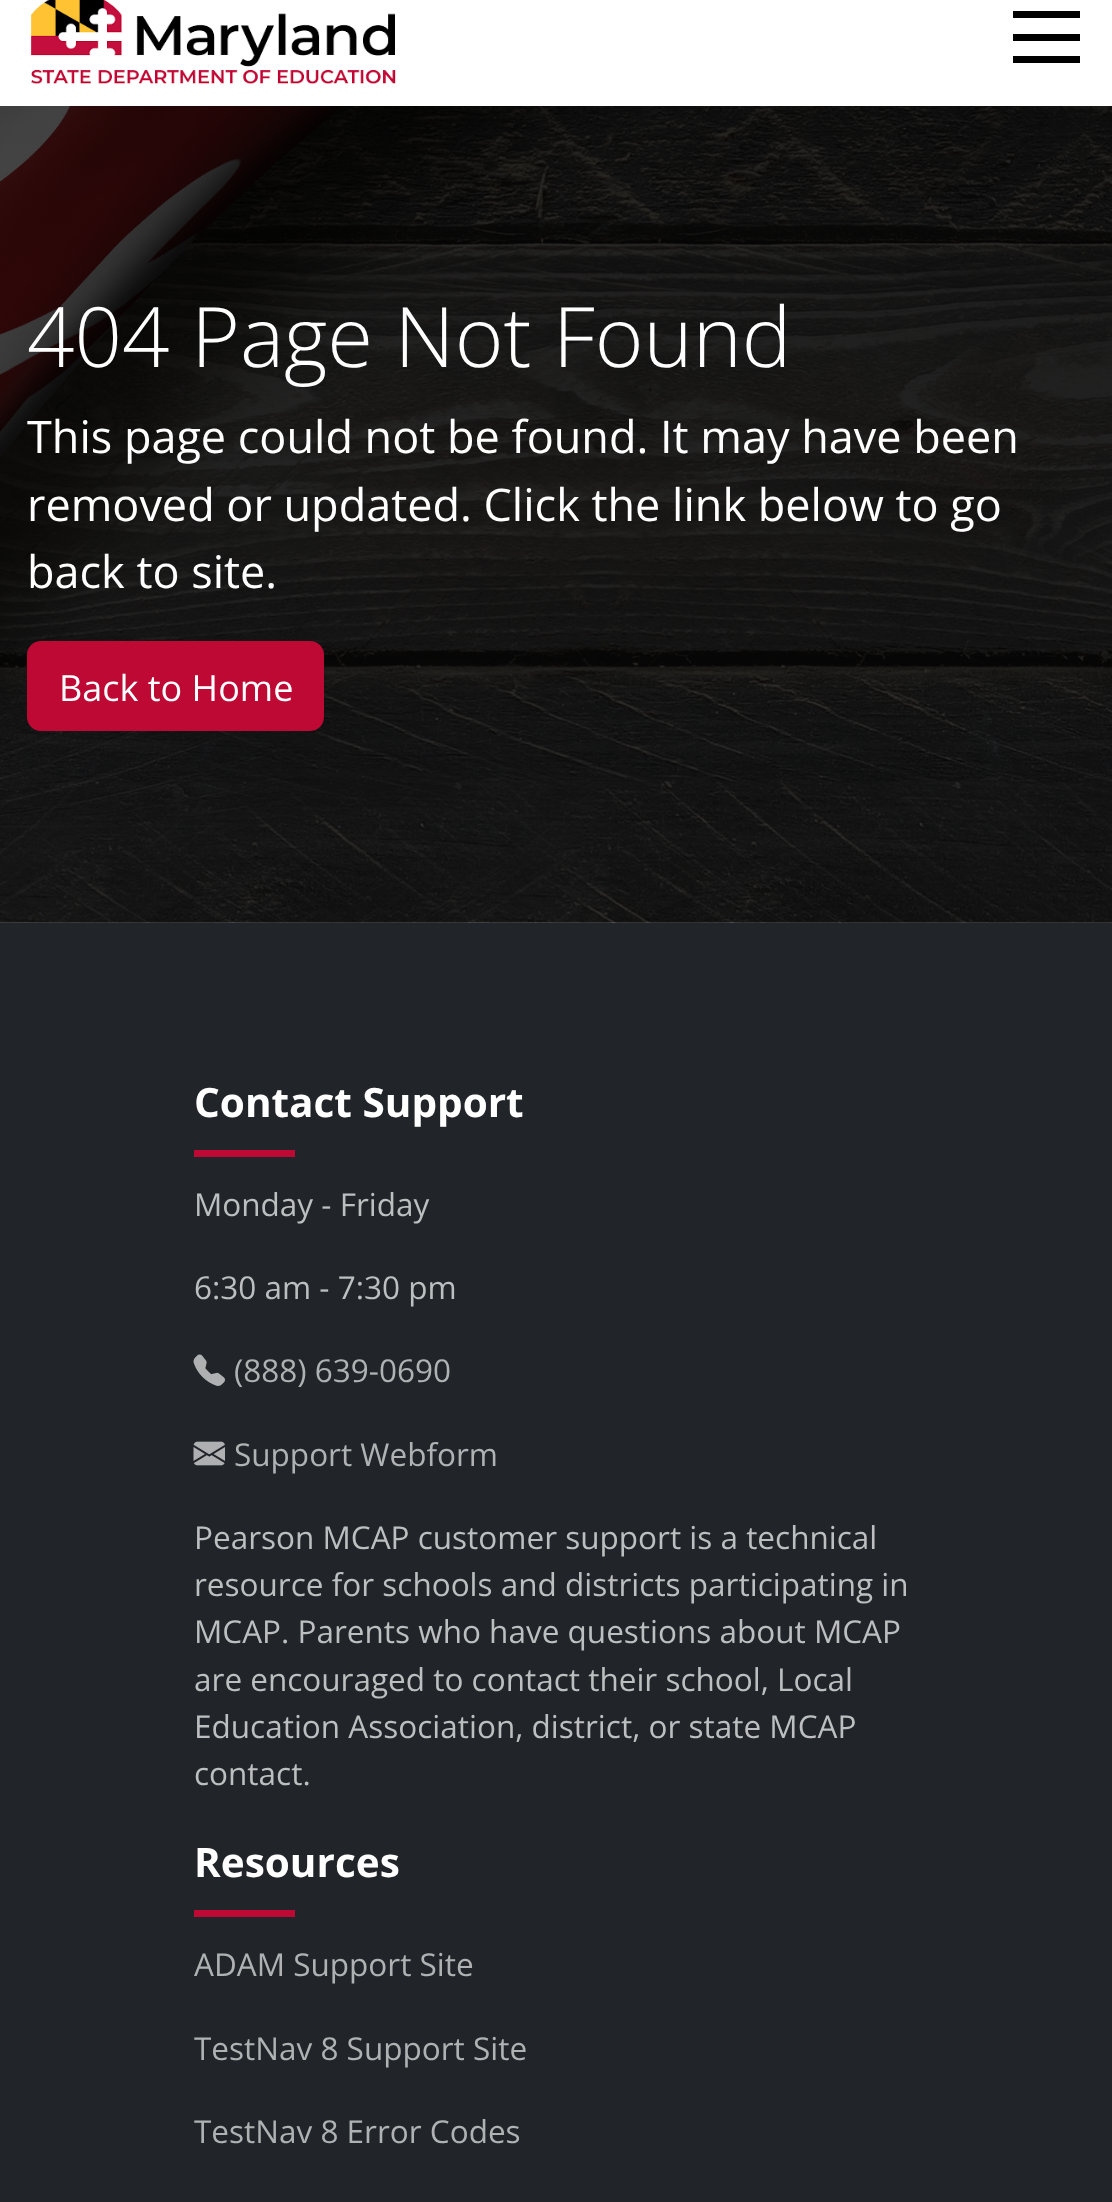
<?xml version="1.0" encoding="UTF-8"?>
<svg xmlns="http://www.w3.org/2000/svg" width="1112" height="2202">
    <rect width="100%" height="100%" fill="#FFFFFF"/>
    <image x="30" y="0" width="366" height="84" href="img_01.png"/>
    <rect x="1013" y="11" width="67" height="7" fill="#000000"/>
    <rect x="1013" y="34" width="67" height="7" fill="#000000"/>
    <rect x="1013" y="56" width="67" height="7" fill="#000000"/>
    <image x="0" y="106" width="1112" height="817" href="img_02.png"/>
    <text x="27" y="367" font-family="Open Sans" font-size="83.25" font-weight="300" fill="#FFFFFF">404 Page Not Found</text>
    <text font-family="Open Sans" font-size="45" fill="#FFFFFF">
        <tspan x="27" y="453">This page could not be found. It may have been</tspan>
        <tspan x="27" y="521">removed or updated. Click the link below to go</tspan>
        <tspan x="27" y="588">back to site.</tspan>
    </text>
    <rect x="29.5" y="643.5" width="292" height="85" rx="11.5" fill="#BD0934" stroke="#BD0934" stroke-width="5"/>
    <text x="59" y="701" font-family="Open Sans" font-size="36" fill="#FFFFFF">Back to Home</text>
    <rect x="0" y="923" width="1112" height="1279" fill="#212529"/>
    <text x="194" y="1117" font-family="Open Sans" font-size="40.5" font-weight="700" fill="#FFFFFF">Contact Support</text>
    <rect x="194" y="1150" width="101" height="7" fill="#BD0934"/>
    <text x="194" y="1216" font-family="Open Sans" font-size="31.5" fill="#BCBEBF">Monday - Friday</text>
    <text x="194" y="1299" font-family="Open Sans" font-size="31.5" fill="#BCBEBF">6:30 am - 7:30 pm</text>
    <image x="193" y="1354" width="32" height="32" href="img_03.png"/>
    <text x="234" y="1382" font-family="Open Sans" font-size="31.5" fill="#AFB1B2">(888) 639-0690</text>
    <image x="193" y="1441" width="32" height="25" href="img_04.png"/>
    <text x="234" y="1466" font-family="Open Sans" font-size="31.5" fill="#AFB1B2">Support Webform</text>
    <text font-family="Open Sans" font-size="31.5" fill="#BCBEBF">
        <tspan x="194" y="1549">Pearson MCAP customer support is a technical</tspan>
        <tspan x="194" y="1596">resource for schools and districts participating in</tspan>
        <tspan x="194" y="1643">MCAP. Parents who have questions about MCAP</tspan>
        <tspan x="194" y="1691">are encouraged to contact their school, Local</tspan>
        <tspan x="194" y="1738">Education Association, district, or state MCAP</tspan>
        <tspan x="194" y="1785">contact.</tspan>
    </text>
    <text x="194" y="1877" font-family="Open Sans" font-size="40.5" font-weight="700" fill="#FFFFFF">Resources</text>
    <rect x="194" y="1910" width="101" height="7" fill="#BD0934"/>
    <text x="194" y="1976" font-family="Open Sans" font-size="31.5" fill="#AFB1B2">ADAM Support Site</text>
    <text x="194" y="2060" font-family="Open Sans" font-size="31.5" fill="#AFB1B2">TestNav 8 Support Site</text>
    <text x="194" y="2143" font-family="Open Sans" font-size="31.5" fill="#AFB1B2">TestNav 8 Error Codes</text>
</svg>
